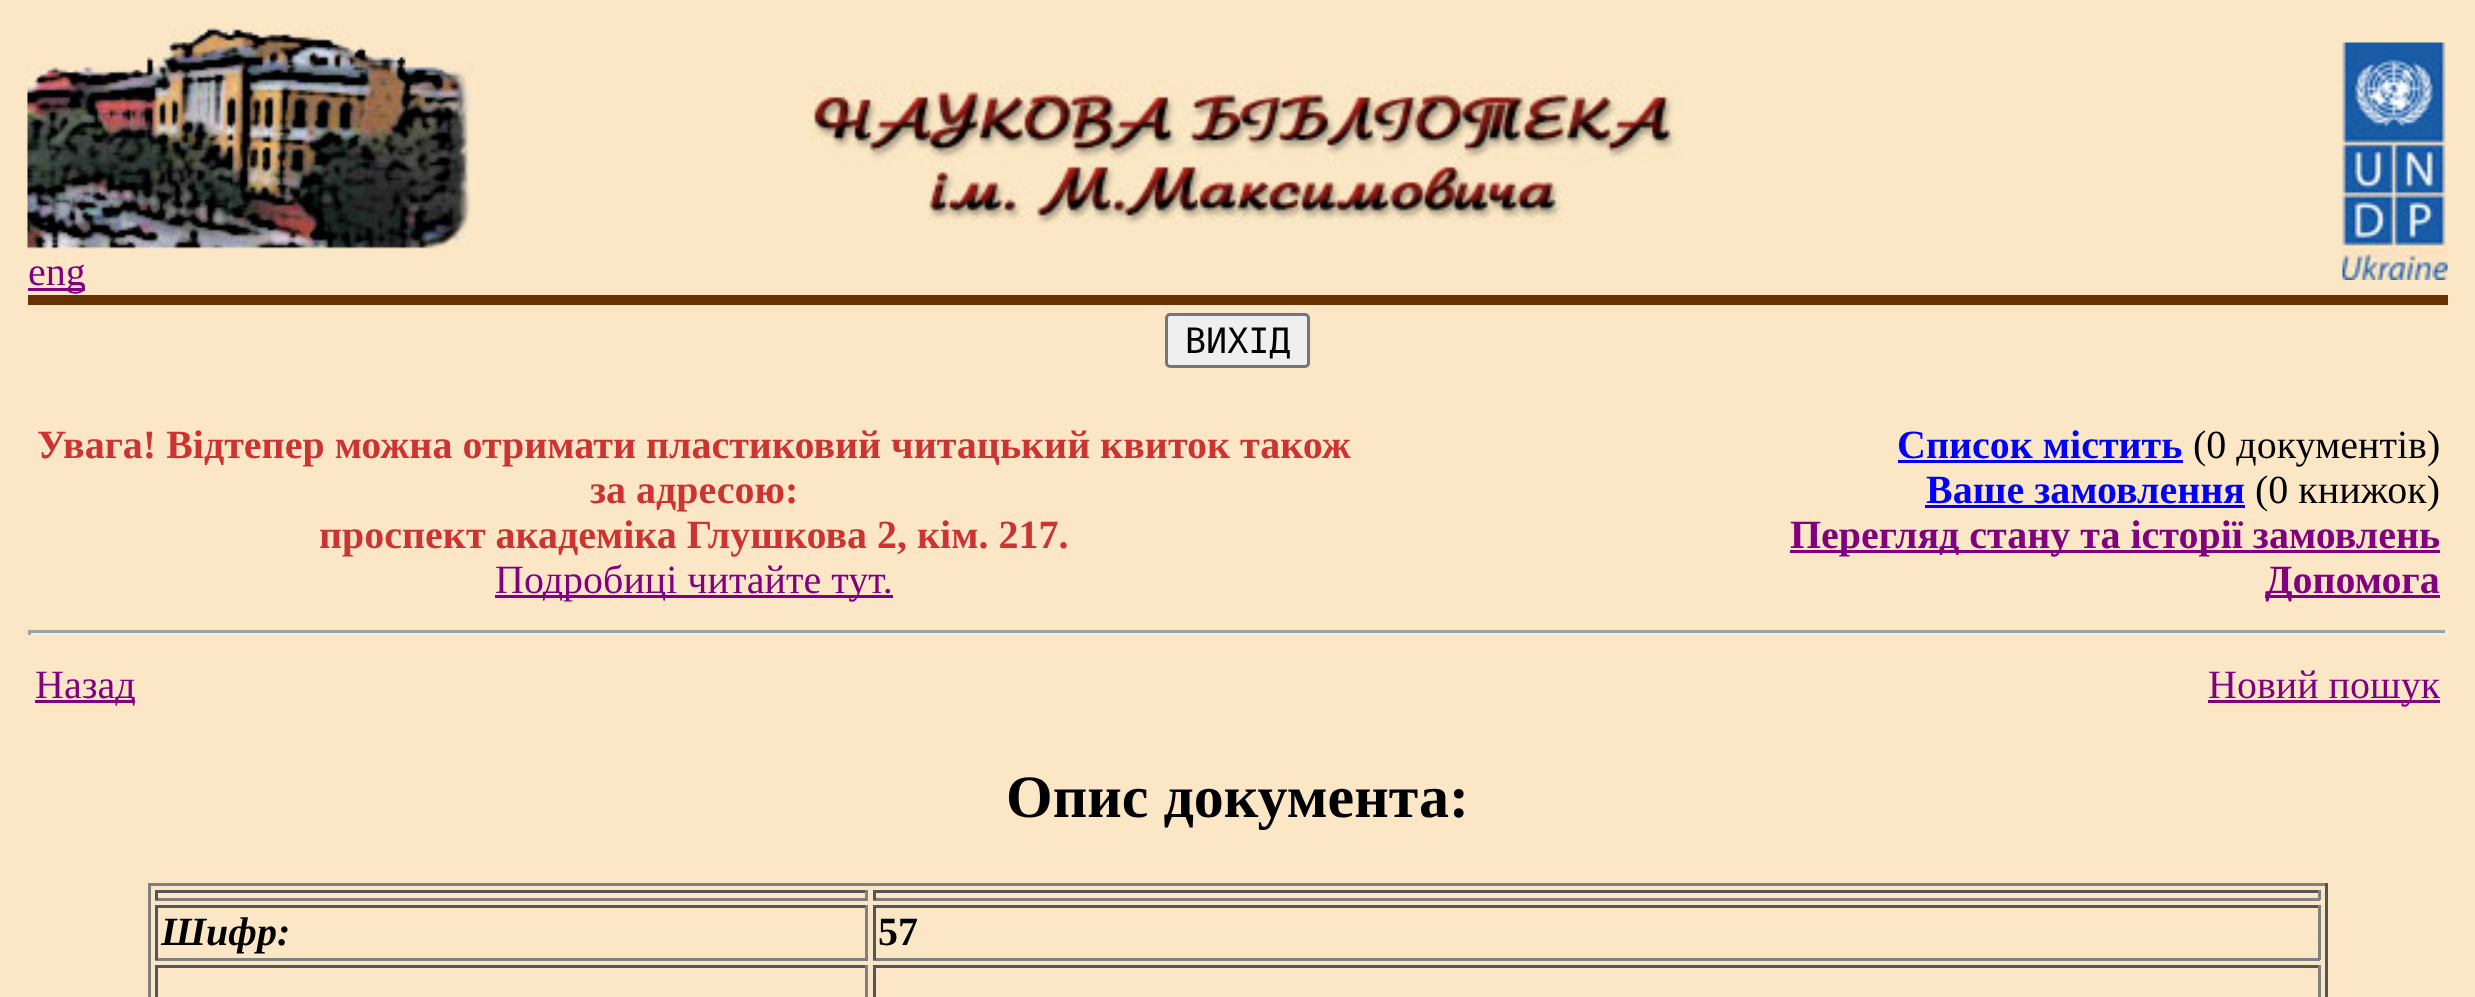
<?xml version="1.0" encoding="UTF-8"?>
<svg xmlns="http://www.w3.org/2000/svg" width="2475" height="997">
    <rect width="100%" height="100%" fill="#FBE7C5"/>
    <image x="807" y="82" width="875" height="143" href="img_01.png"/>
    <image x="2342" y="42" width="106" height="238" href="img_02.png"/>
    <image x="27" y="27" width="448" height="223" href="img_03.png"/>
    <rect x="28" y="288" width="57" height="3" fill="#800080"/>
    <text x="28" y="285" font-family="Liberation Serif" font-size="40" fill="#800080">eng</text>
    <rect x="28" y="295" width="2420" height="10" fill="#663300"/>
    <rect x="1166.5" y="314.5" width="142" height="52" rx="3.5" fill="#EFEFEF" stroke="#767676" stroke-width="3"/>
    <text x="1185" y="353" font-family="DejaVu Sans Mono" font-size="35" fill="#000000">ВИХІД</text>
    <text x="37" y="458" font-family="Liberation Serif" font-size="40" font-weight="700" fill="#CC3333">Увага! Відтепер можна отримати пластиковий читацький квиток також</text>
    <text x="590" y="503" font-family="Liberation Serif" font-size="40" font-weight="700" fill="#CC3333">за адресою:</text>
    <text x="319" y="548" font-family="Liberation Serif" font-size="40" font-weight="700" fill="#CC3333">проспект академіка Глушкова 2, кім. 217.</text>
    <rect x="495" y="595" width="398" height="3" fill="#800080"/>
    <text x="495" y="593" font-family="Liberation Serif" font-size="40" fill="#800080">Подробиці читайте тут.</text>
    <text x="1897" y="458" font-family="Liberation Serif" font-size="40" font-weight="700" fill="#0000FF">Список містить</text>
    <rect x="1898" y="460" width="285" height="3" fill="#0000FF"/>
    <text x="2193" y="458" font-family="Liberation Serif" font-size="40" fill="#000000">(0 документів)</text>
    <text x="1926" y="503" font-family="Liberation Serif" font-size="40" font-weight="700" fill="#0000FF">Ваше замовлення</text>
    <rect x="1925" y="505" width="320" height="3" fill="#0000FF"/>
    <text x="2255" y="503" font-family="Liberation Serif" font-size="40" fill="#000000">(0 книжок)</text>
    <rect x="1790" y="550" width="650" height="3" fill="#800080"/>
    <text x="1790" y="548" font-family="Liberation Serif" font-size="40" font-weight="700" fill="#800080">Перегляд стану та історії замовлень</text>
    <rect x="2265" y="595" width="175" height="3" fill="#800080"/>
    <text x="2265" y="593" font-family="Liberation Serif" font-size="40" font-weight="700" fill="#800080">Допомога</text>
    <rect x="28" y="630" width="2420" height="3" fill="#9F9F9F"/>
    <rect x="2445" y="630" width="3" height="5" fill="#EEEEEE"/>
    <rect x="28" y="633" width="2420" height="3" fill="#EEEEEE"/>
    <rect x="28" y="630" width="3" height="5" fill="#9F9F9F"/>
    <rect x="35" y="700" width="100" height="3" fill="#800080"/>
    <text x="35" y="698" font-family="Liberation Serif" font-size="40" fill="#800080">Назад</text>
    <rect x="2208" y="700" width="232" height="3" fill="#800080"/>
    <text x="2208" y="698" font-family="Liberation Serif" font-size="40" fill="#800080">Новий пошук</text>
    <text x="1006" y="817" font-family="Liberation Serif" font-size="60" font-weight="700" fill="#000000">Опис документа:</text>
    <rect x="148" y="883" width="2180" height="3" fill="#808080"/>
    <rect x="2325" y="883" width="3" height="114" fill="#555555"/>
    <rect x="148" y="883" width="3" height="114" fill="#808080"/>
    <rect x="155" y="890" width="713" height="3" fill="#555555"/>
    <rect x="865" y="890" width="3" height="10" fill="#808080"/>
    <rect x="155" y="898" width="713" height="3" fill="#808080"/>
    <rect x="155" y="890" width="3" height="10" fill="#555555"/>
    <rect x="873" y="890" width="1447" height="3" fill="#555555"/>
    <rect x="2318" y="890" width="3" height="10" fill="#808080"/>
    <rect x="873" y="898" width="1447" height="3" fill="#808080"/>
    <rect x="873" y="890" width="3" height="10" fill="#555555"/>
    <rect x="155" y="905" width="713" height="3" fill="#555555"/>
    <rect x="865" y="905" width="3" height="55" fill="#808080"/>
    <rect x="155" y="958" width="713" height="3" fill="#808080"/>
    <rect x="155" y="905" width="3" height="55" fill="#555555"/>
    <text x="161" y="945" font-family="Liberation Serif" font-size="40" font-weight="700" font-style="italic" fill="#000000">Шифр:</text>
    <rect x="873" y="905" width="1447" height="3" fill="#555555"/>
    <rect x="2318" y="905" width="3" height="55" fill="#808080"/>
    <rect x="873" y="958" width="1447" height="3" fill="#808080"/>
    <rect x="873" y="905" width="3" height="55" fill="#555555"/>
    <text x="878" y="945" font-family="Liberation Serif" font-size="40" font-weight="700" fill="#000000">57</text>
    <rect x="155" y="965" width="713" height="3" fill="#555555"/>
    <rect x="865" y="965" width="3" height="32" fill="#808080"/>
    <rect x="155" y="965" width="3" height="32" fill="#555555"/>
    <rect x="873" y="965" width="1447" height="3" fill="#555555"/>
    <rect x="2318" y="965" width="3" height="32" fill="#808080"/>
    <rect x="873" y="965" width="3" height="32" fill="#555555"/>
</svg>
